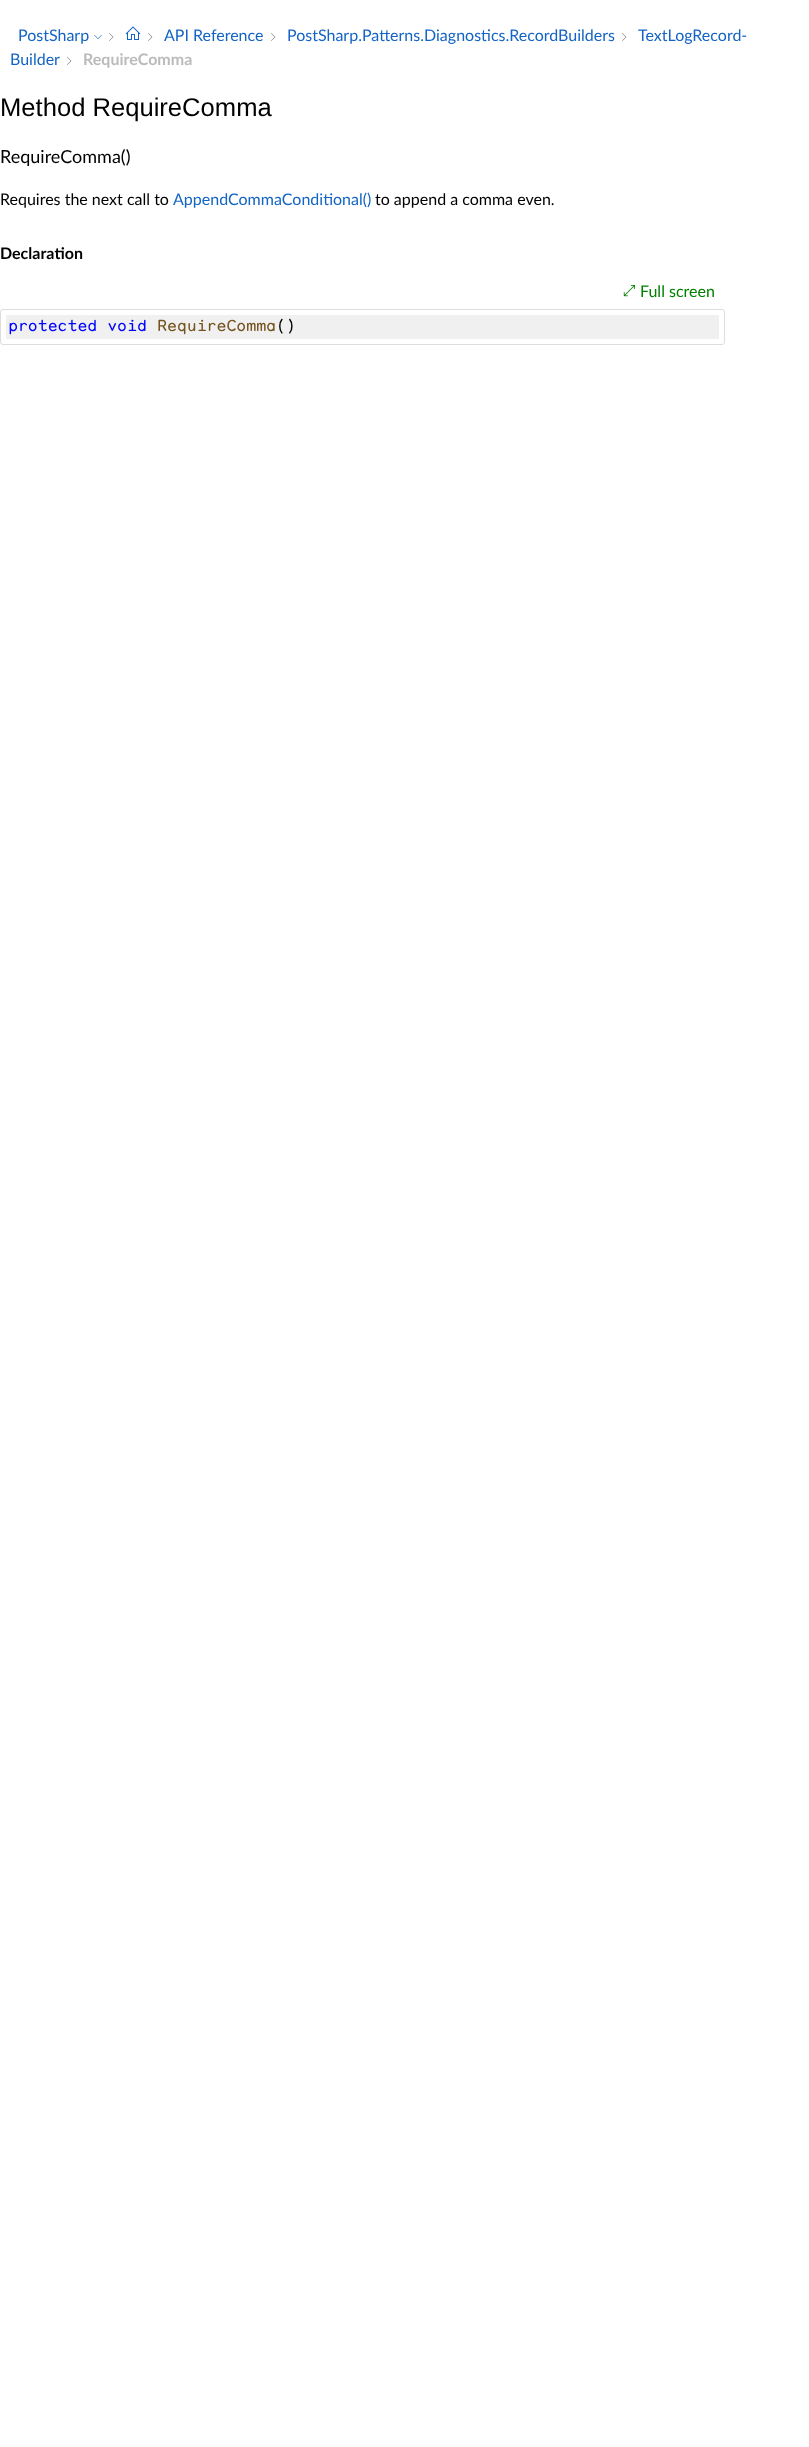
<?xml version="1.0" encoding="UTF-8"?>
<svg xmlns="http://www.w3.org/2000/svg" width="809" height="2447">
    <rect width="100%" height="100%" fill="#FFFFFF"/>
    <text x="18" y="41" font-family="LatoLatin" font-size="16" fill="#1364C4">PostSharp</text>
    <image x="94" y="34" width="8" height="5" href="img_01.png"/>
    <image x="109" y="33" width="5" height="8" href="img_02.png"/>
    <image x="125" y="26" width="16" height="14" href="img_03.png"/>
    <image x="148" y="33" width="5" height="8" href="img_02.png"/>
    <text x="164" y="41" font-family="LatoLatin" font-size="16" fill="#1364C4">API Reference</text>
    <image x="271" y="33" width="5" height="8" href="img_02.png"/>
    <text x="287" y="41" font-family="LatoLatin" font-size="16" fill="#1364C4">PostSharp.Patterns.Diagnostics.RecordBuilders</text>
    <image x="622" y="33" width="5" height="8" href="img_02.png"/>
    <text x="638" y="41" font-family="LatoLatin" font-size="16" fill="#1364C4">TextLogRecord-</text>
    <text x="10" y="65" font-family="LatoLatin" font-size="16" fill="#1364C4">Builder</text>
    <image x="67" y="57" width="5" height="8" href="img_02.png"/>
    <text x="83" y="65" font-family="LatoLatin" font-size="16" font-weight="700" fill="#BBBBBB">RequireComma</text>
    <text x="0" y="116" font-family="Liberation Sans" font-size="25.6" fill="#000000">Method RequireComma</text>
    <text x="0" y="163" font-family="LatoLatin" font-size="18" fill="#000000">RequireComma()</text>
    <text x="0" y="205" font-family="LatoLatin" font-size="16" fill="#000000">Requires the next call to</text>
    <text x="173" y="205" font-family="LatoLatin" font-size="16" fill="#1364C4">AppendCommaConditional()</text>
    <text x="375" y="205" font-family="LatoLatin" font-size="16" fill="#000000">to append a comma even.</text>
    <text x="0" y="259" font-family="LatoLatin" font-size="16" font-weight="700" fill="#000000">Declaration</text>
    <image x="623" y="285" width="12" height="12" href="img_04.png"/>
    <text x="640" y="297" font-family="LatoLatin" font-size="16" fill="#008000">Full screen</text>
    <rect x="0.5" y="309.5" width="724" height="35" rx="2.5" fill="none" stroke="#DDDDDD"/>
    <rect x="6" y="315" width="713" height="24" fill="#F0F0F0"/>
    <text x="8" y="331" font-family="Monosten" font-size="16" fill="#0000FF">protected void</text>
    <text x="157" y="331" font-family="Monosten" font-size="16" fill="#74531F">RequireComma</text>
    <text x="276" y="331" font-family="Monosten" font-size="16" fill="#000000">()</text>
</svg>
